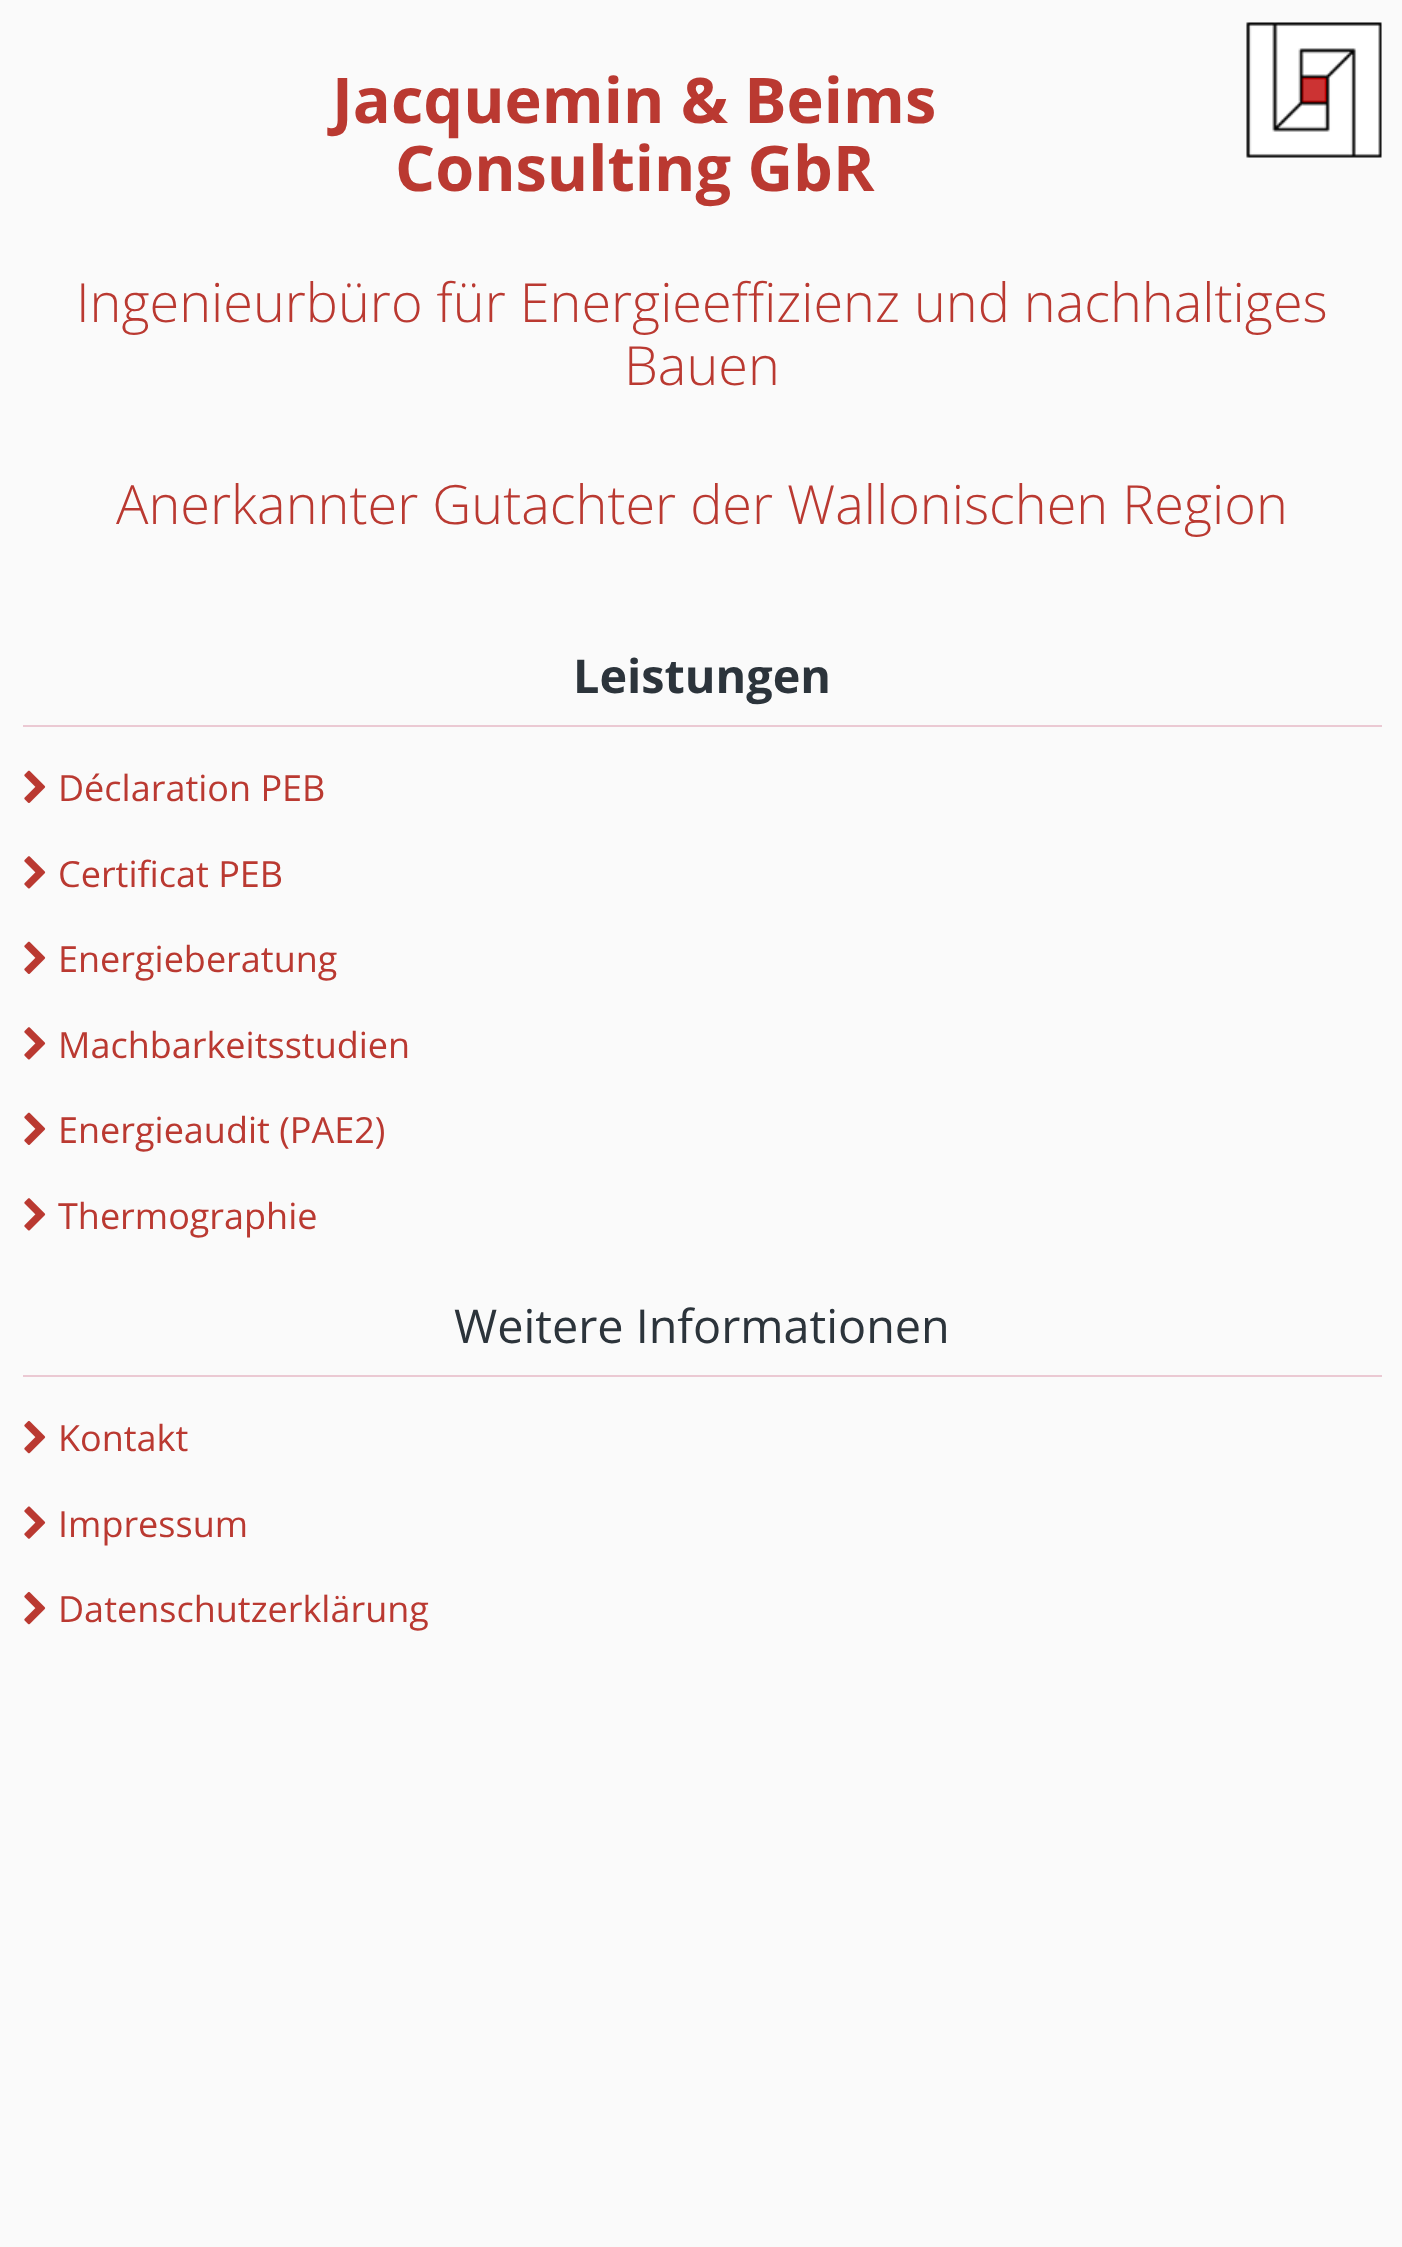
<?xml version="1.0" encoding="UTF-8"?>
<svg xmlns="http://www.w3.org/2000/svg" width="1402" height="2247">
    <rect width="100%" height="100%" fill="#FAFAFA"/>
    <image x="1246" y="22" width="136" height="136" href="img_01.png"/>
    <text x="332" y="123" font-family="Open Sans" font-size="63" font-weight="700" fill="#BA3931">Jacquemin &amp; Beims</text>
    <text x="395" y="191" font-family="Open Sans" font-size="63" font-weight="700" fill="#BA3931">Consulting GbR</text>
    <text x="76" y="322" font-family="Open Sans" font-size="54" font-weight="300" fill="#BA3931">Ingenieurbüro für Energieeffizienz und nachhaltiges</text>
    <text x="624" y="385" font-family="Open Sans" font-size="54" font-weight="300" fill="#BA3931">Bauen</text>
    <text x="116" y="524" font-family="Open Sans" font-size="54" font-weight="300" fill="#BA3931">Anerkannter Gutachter der Wallonischen Region</text>
    <rect x="23" y="725" width="1359" height="2" fill="#EBC9D3"/>
    <text x="573" y="693" font-family="Open Sans" font-size="46.75" font-weight="700" fill="#2C343B">Leistungen</text>
    <image x="24" y="770" width="22" height="33" href="img_02.png"/>
    <text x="58" y="801" font-family="Open Sans" font-size="36" fill="#BA3931">Déclaration PEB</text>
    <image x="24" y="856" width="22" height="33" href="img_03.png"/>
    <text x="58" y="887" font-family="Open Sans" font-size="36" fill="#BA3931">Certificat PEB</text>
    <image x="24" y="941" width="22" height="33" href="img_02.png"/>
    <text x="58" y="972" font-family="Open Sans" font-size="36" fill="#BA3931">Energieberatung</text>
    <image x="24" y="1027" width="22" height="33" href="img_03.png"/>
    <text x="58" y="1058" font-family="Open Sans" font-size="36" fill="#BA3931">Machbarkeitsstudien</text>
    <image x="24" y="1112" width="22" height="33" href="img_02.png"/>
    <text x="58" y="1143" font-family="Open Sans" font-size="36" fill="#BA3931">Energieaudit (PAE2)</text>
    <image x="24" y="1198" width="22" height="33" href="img_03.png"/>
    <text x="58" y="1229" font-family="Open Sans" font-size="36" fill="#BA3931">Thermographie</text>
    <rect x="23" y="1375" width="1359" height="2" fill="#EBC9D3"/>
    <text x="454" y="1343" font-family="Open Sans" font-size="46.75" fill="#2C343B">Weitere Informationen</text>
    <image x="24" y="1420" width="22" height="34" href="img_04.png"/>
    <text x="58" y="1451" font-family="Open Sans" font-size="36" fill="#BA3931">Kontakt</text>
    <image x="24" y="1506" width="22" height="33" href="img_05.png"/>
    <text x="58" y="1537" font-family="Open Sans" font-size="36" fill="#BA3931">Impressum</text>
    <image x="24" y="1591" width="22" height="34" href="img_04.png"/>
    <text x="58" y="1622" font-family="Open Sans" font-size="36" fill="#BA3931">Datenschutzerklärung</text>
</svg>
